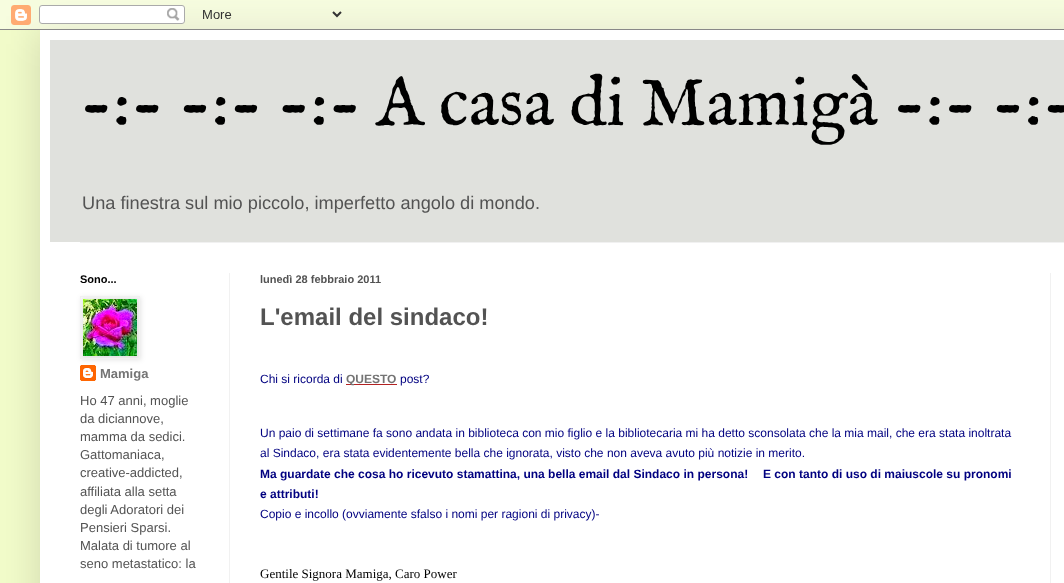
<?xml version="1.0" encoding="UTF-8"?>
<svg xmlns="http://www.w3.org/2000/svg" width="1064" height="583">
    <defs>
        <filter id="blur1" x="-50%" y="-200%" width="200%" height="500%"><feGaussianBlur stdDeviation="20"/></filter>
        <filter id="blur2" x="-50%" y="-200%" width="200%" height="500%"><feGaussianBlur stdDeviation="2.5"/></filter>
    </defs>
    <rect width="100%" height="100%" fill="#F2FCCA"/>
    <rect x="40" y="30" width="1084" height="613" fill="#000000" fill-opacity="0.15" filter="url(#blur1)"/>
    <image x="0" y="0" width="1064" height="30" href="img_01.png"/>
    <rect x="40" y="30" width="1024" height="553" fill="#FFFFFF"/>
    <rect x="50" y="40" width="1014" height="202" fill="#E0E1DD"/>
    <text x="80" y="125" font-family="IM FELL English" font-size="70" fill="#000000">-:- -:- -:- A casa di Mamigà -:- -:-</text>
    <text x="82" y="209" font-family="Liberation Sans" font-size="18.2" fill="#535353">Una finestra sul mio piccolo, imperfetto angolo di mondo.</text>
    <rect x="80" y="242" width="984" height="1" fill="#F1F1F1"/>
    <rect x="229" y="273" width="1" height="310" fill="#F1F1F1"/>
    <rect x="1050" y="273" width="1" height="310" fill="#F1F1F1"/>
    <text x="80" y="283" font-family="Liberation Sans" font-size="11" font-weight="700" fill="#000000">Sono...</text>
    <image x="80" y="365" width="16" height="16" href="img_03.png"/>
    <rect x="81" y="297" width="60" height="63" fill="#000000" fill-opacity="0.1" filter="url(#blur2)"/>
    <rect x="80.5" y="296.5" width="59" height="62" fill="none" stroke="#F1F1F1"/>
    <image x="83" y="299" width="54" height="57" href="img_02.png"/>
    <text x="100" y="378" font-family="Liberation Sans" font-size="13" font-weight="700" fill="#747474">Mamiga</text>
    <text font-family="Liberation Sans" font-size="13" fill="#535353">
        <tspan x="80" y="405">Ho 47 anni, moglie</tspan>
        <tspan x="80" y="423">da diciannove,</tspan>
        <tspan x="80" y="441">mamma da sedici.</tspan>
        <tspan x="80" y="459">Gattomaniaca,</tspan>
        <tspan x="80" y="477">creative-addicted,</tspan>
        <tspan x="80" y="496">affiliata alla setta</tspan>
        <tspan x="80" y="514">degli Adoratori dei</tspan>
        <tspan x="80" y="532">Pensieri Sparsi.</tspan>
        <tspan x="80" y="550">Malata di tumore al</tspan>
        <tspan x="80" y="568">seno metastatico: la</tspan>
    </text>
    <text x="260" y="283" font-family="Liberation Sans" font-size="11" font-weight="700" fill="#535353">lunedì 28 febbraio 2011</text>
    <text x="260" y="325" font-family="Liberation Sans" font-size="24" font-weight="700" fill="#535353">L'email del sindaco!</text>
    <text x="260" y="383" font-family="Liberation Sans" font-size="12" fill="#000080">Chi si ricorda di</text>
    <rect x="346" y="384" width="51" height="1" fill="#B22222"/>
    <text x="346" y="383" font-family="Liberation Sans" font-size="12" font-weight="700" fill="#747474">QUESTO</text>
    <text x="400" y="383" font-family="Liberation Sans" font-size="12" fill="#000080">post?</text>
    <text font-family="Liberation Sans" font-size="12" fill="#000080">
        <tspan x="260" y="437">Un paio di settimane fa sono andata in biblioteca con mio figlio e la bibliotecaria mi ha detto sconsolata che la mia mail, che era stata inoltrata</tspan>
        <tspan x="260" y="457">al Sindaco, era stata evidentemente bella che ignorata, visto che non aveva avuto più notizie in merito.</tspan>
    </text>
    <text x="260" y="478" font-family="Liberation Sans" font-size="12" font-weight="700" fill="#000080">Ma guardate che cosa ho ricevuto stamattina, una bella email dal Sindaco in persona!</text>
    <text x="763" y="478" font-family="Liberation Sans" font-size="12" font-weight="700" fill="#000080">E con tanto di uso di maiuscole su pronomi</text>
    <text x="260" y="498" font-family="Liberation Sans" font-size="12" font-weight="700" fill="#000080">e attributi!</text>
    <text x="260" y="518" font-family="Liberation Sans" font-size="12" fill="#000080">Copio e incollo (ovviamente sfalso i nomi per ragioni di privacy)-</text>
    <text x="260" y="578" font-family="Liberation Serif" font-size="13" fill="#000000">Gentile Signora Mamiga, Caro Power</text>
</svg>
